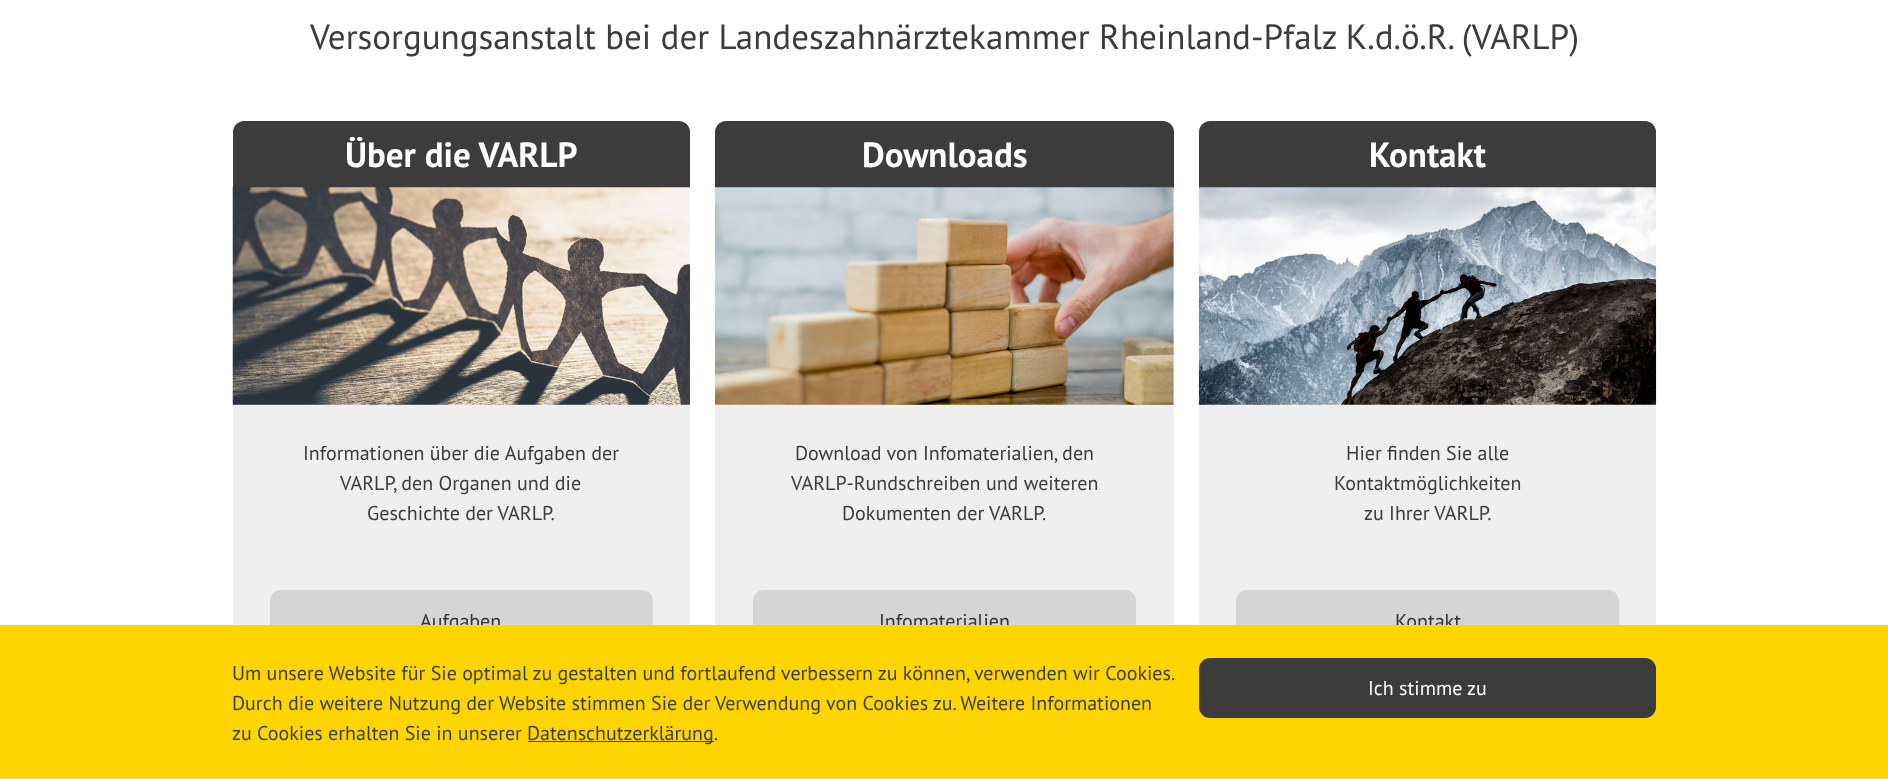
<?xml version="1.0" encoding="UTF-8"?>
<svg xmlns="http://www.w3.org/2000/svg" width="1888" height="779">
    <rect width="100%" height="100%" fill="#FFFFFF"/>
    <text x="310" y="49" font-family="PT Sans" font-size="35" fill="#3C3C3C">Versorgungsanstalt bei der Landeszahnärztekammer Rheinland-Pfalz K.d.ö.R. (VARLP)</text>
    <rect x="233" y="121" width="457" height="567" rx="11" fill="#EFEFEF"/>
    <path d="M 244 121 H 679 C 685 121 690 126 690 132 V 188 H 233 V 132 C 233 126 238 121 244 121 Z" fill="#3C3C3C"/>
    <text x="345" y="167" font-family="PT Sans" font-size="35" font-weight="700" fill="#FFFFFF">Über die VARLP</text>
    <image x="232" y="187" width="458" height="218" href="img_01.png"/>
    <text x="303" y="460" font-family="PT Sans" font-size="20" fill="#3C3C3C">Informationen über die Aufgaben der</text>
    <text x="340" y="490" font-family="PT Sans" font-size="20" fill="#3C3C3C">VARLP, den Organen und die</text>
    <text x="367" y="520" font-family="PT Sans" font-size="20" fill="#3C3C3C">Geschichte der VARLP.</text>
    <rect x="270" y="590" width="383" height="60" rx="11" fill="#D5D5D5"/>
    <text x="420" y="628" font-family="PT Sans" font-size="20" fill="#333333">Aufgaben</text>
    <rect x="715" y="121" width="459" height="567" rx="11" fill="#EFEFEF"/>
    <path d="M 726 121 H 1163 C 1169 121 1174 126 1174 132 V 188 H 715 V 132 C 715 126 720 121 726 121 Z" fill="#3C3C3C"/>
    <text x="862" y="167" font-family="PT Sans" font-size="35" font-weight="700" fill="#FFFFFF">Downloads</text>
    <image x="715" y="187" width="459" height="218" href="img_02.png"/>
    <text x="795" y="460" font-family="PT Sans" font-size="20" fill="#3C3C3C">Download von Infomaterialien, den</text>
    <text x="791" y="490" font-family="PT Sans" font-size="20" fill="#3C3C3C">VARLP-Rundschreiben und weiteren</text>
    <text x="842" y="520" font-family="PT Sans" font-size="20" fill="#3C3C3C">Dokumenten der VARLP.</text>
    <rect x="753" y="590" width="383" height="60" rx="11" fill="#D5D5D5"/>
    <text x="879" y="628" font-family="PT Sans" font-size="20" fill="#333333">Infomaterialien</text>
    <rect x="1199" y="121" width="457" height="567" rx="11" fill="#EFEFEF"/>
    <path d="M 1210 121 H 1645 C 1651 121 1656 126 1656 132 V 188 H 1199 V 132 C 1199 126 1204 121 1210 121 Z" fill="#3C3C3C"/>
    <text x="1369" y="167" font-family="PT Sans" font-size="35" font-weight="700" fill="#FFFFFF">Kontakt</text>
    <image x="1198" y="187" width="459" height="218" href="img_03.png"/>
    <text x="1346" y="460" font-family="PT Sans" font-size="20" fill="#3C3C3C">Hier finden Sie alle</text>
    <text x="1334" y="490" font-family="PT Sans" font-size="20" fill="#3C3C3C">Kontaktmöglichkeiten</text>
    <text x="1364" y="520" font-family="PT Sans" font-size="20" fill="#3C3C3C">zu Ihrer VARLP.</text>
    <rect x="1236" y="590" width="383" height="60" rx="11" fill="#D5D5D5"/>
    <text x="1395" y="628" font-family="PT Sans" font-size="20" fill="#333333">Kontakt</text>
    <rect x="0" y="625" width="1888" height="154" fill="#FFD500"/>
    <text font-family="PT Sans" font-size="20" fill="#3C3C3C">
        <tspan x="232" y="680">Um unsere Website für Sie optimal zu gestalten und fortlaufend verbessern zu können, verwenden wir Cookies.</tspan>
        <tspan x="232" y="710">Durch die weitere Nutzung der Website stimmen Sie der Verwendung von Cookies zu. Weitere Informationen</tspan>
        <tspan x="232" y="740">zu Cookies erhalten Sie in unserer</tspan>
    </text>
    <rect x="528" y="741" width="186" height="1" fill="#3C3C3C"/>
    <text x="527" y="740" font-family="PT Sans" font-size="20" fill="#3C3C3C">Datenschutzerklärung.</text>
    <rect x="1199" y="658" width="457" height="60" rx="11" fill="#3C3C3C"/>
    <text x="1368" y="695" font-family="PT Sans" font-size="20" fill="#FFFFFF">Ich stimme zu</text>
</svg>
